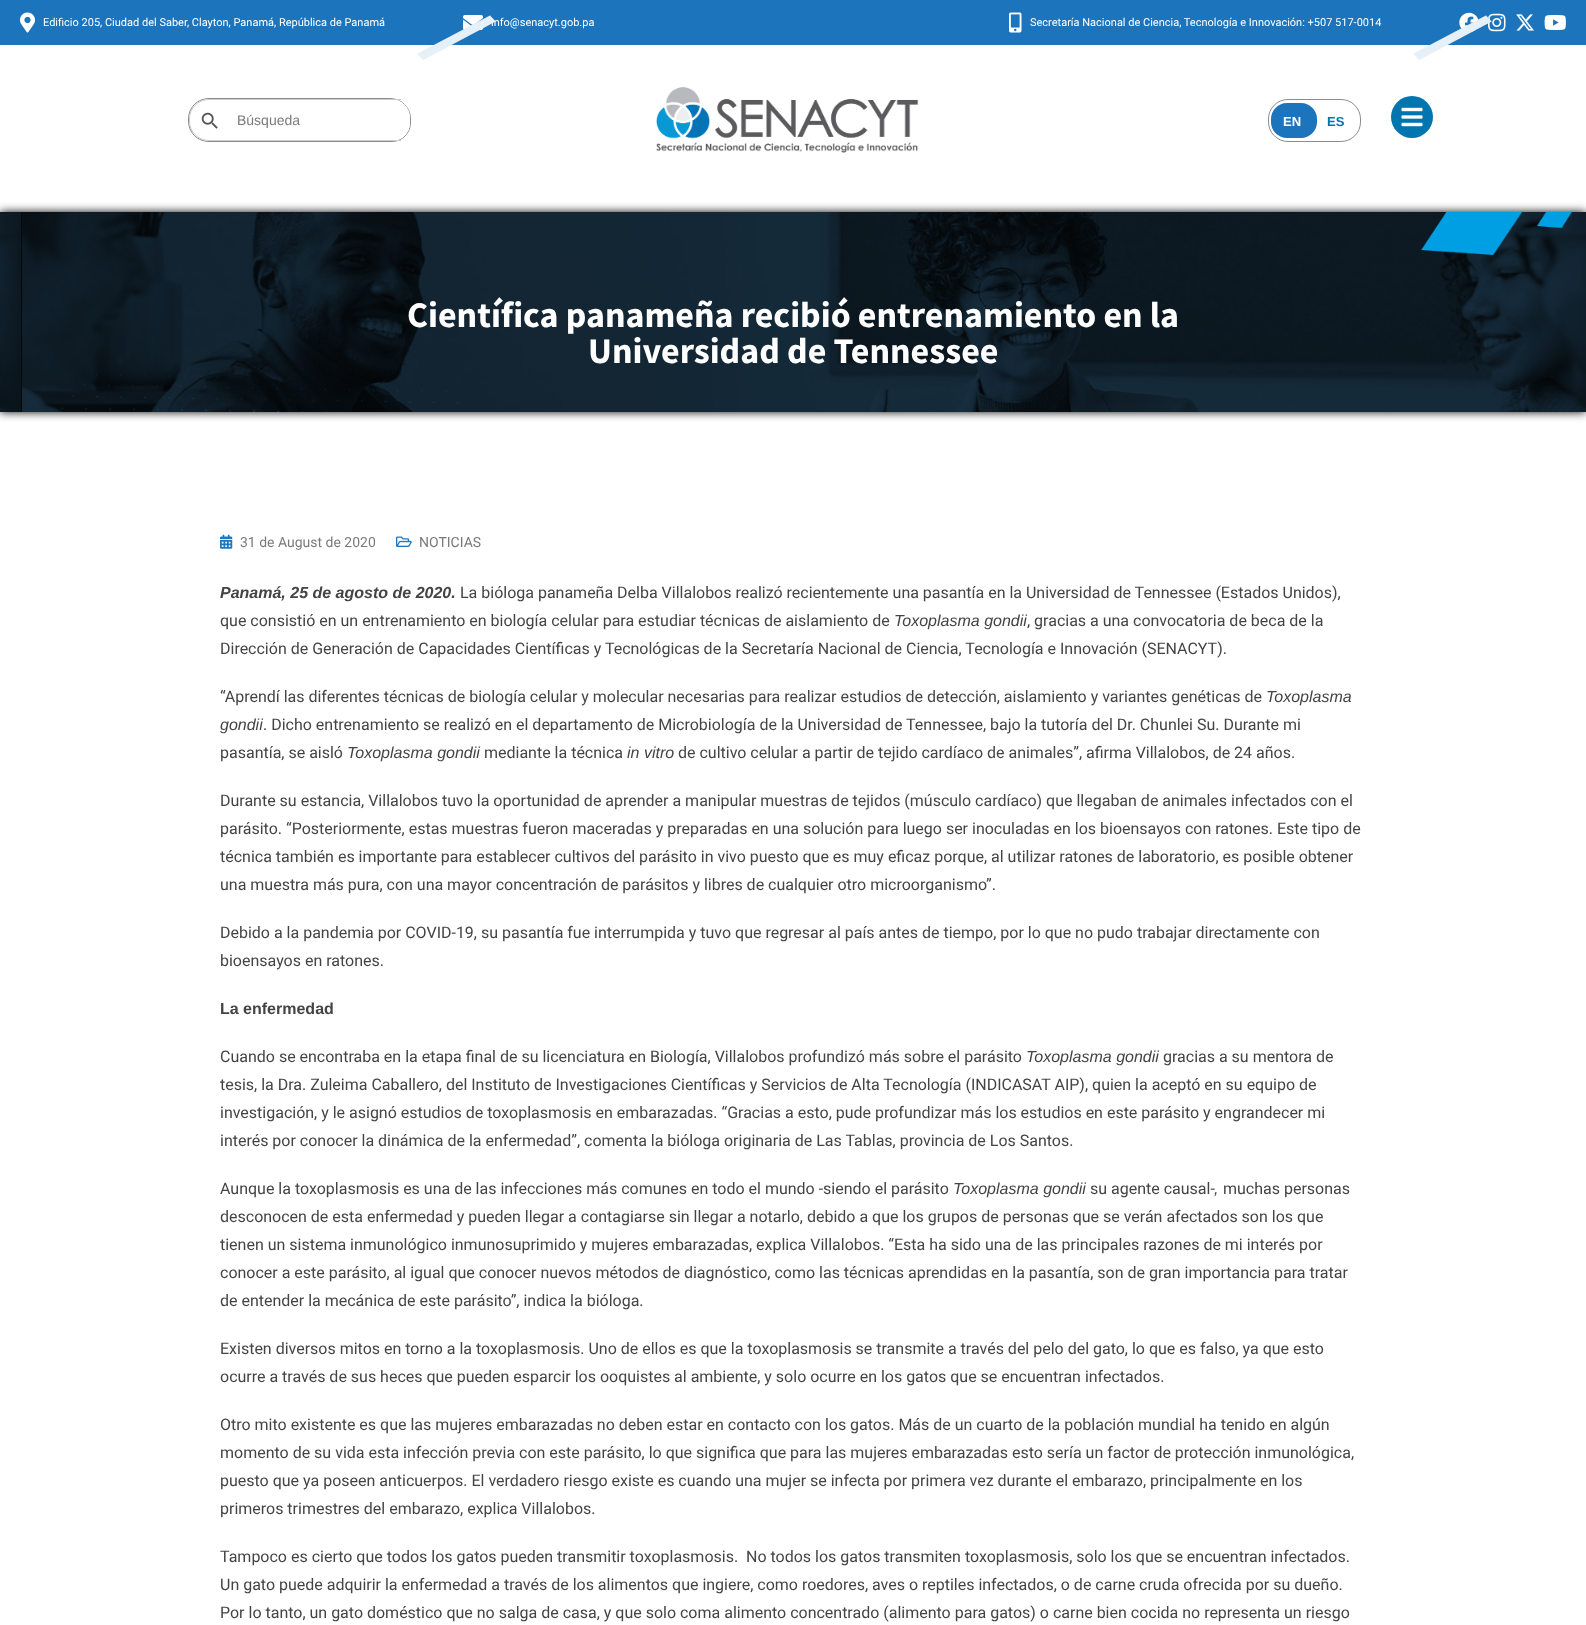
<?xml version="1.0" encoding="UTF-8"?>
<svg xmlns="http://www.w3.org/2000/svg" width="1586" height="1625">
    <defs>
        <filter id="blur1" x="-50%" y="-200%" width="200%" height="500%"><feGaussianBlur stdDeviation="5"/></filter>
    </defs>
    <rect width="100%" height="100%" fill="#FFFFFF"/>
    <rect x="0" y="0" width="1586" height="45" fill="#1C75BC"/>
    <image x="20" y="12" width="15" height="21" href="img_01.png"/>
    <text x="43" y="26" font-family="Roboto" font-size="11" fill="#FFFFFF">Edificio 205, Ciudad del Saber, Clayton, Panamá, República de Panamá</text>
    <image x="463" y="15" width="20" height="15" href="img_02.png"/>
    <text x="491" y="26" font-family="Roboto" font-size="11" fill="#FFFFFF">info@senacyt.gob.pa</text>
    <text x="418" y="53" transform="rotate(47 418 53)" font-family="Liberation Sans" font-size="108" letter-spacing="-19" fill="#E6F0F8">/</text>
    <image x="1009" y="12" width="13" height="21" href="img_03.png"/>
    <text x="1030" y="26" font-family="Roboto" font-size="11" fill="#FFFFFF">Secretaría Nacional de Ciencia, Tecnología e Innovación: +507 517-0014</text>
    <image x="1459" y="12" width="20" height="20" href="img_04.png"/>
    <image x="1488" y="13" width="18" height="19" href="img_05.png"/>
    <text x="1414" y="53" transform="rotate(47 1414 53)" font-family="Liberation Sans" font-size="108" letter-spacing="-19" fill="#E6F0F8">/</text>
    <image x="1516" y="14" width="18" height="17" href="img_06.png"/>
    <image x="1544" y="15" width="22" height="15" href="img_07.png"/>
    <path d="M 209 98.5 H 390 C 401.5 98.5 410.5 107.5 410.5 119 V 123 C 410.5 133 402 141.5 392 141.5 H 209 C 197.5 141.5 188.5 132.5 188.5 121 V 119 C 188.5 107.5 197.5 98.5 209 98.5 Z" fill="none" stroke="#8B8C8C"/>
    <path d="M 209 99.5 H 229.5 V 140.5 H 209 C 198 140.5 189.5 132 189.5 121 V 119 C 189.5 108 198 99.5 209 99.5 Z" fill="#FFFFFF" stroke="#CCCCCC"/>
    <image x="201" y="112" width="17" height="17" href="img_08.png"/>
    <path d="M 225 99 H 391 C 401.5 99 410 107.5 410 118 V 123 C 410 133 402 141 392 141 H 225 Z" fill="#FFFFFF"/>
    <rect x="225" y="99" width="176" height="1" fill="#CCCCCC"/>
    <rect x="225" y="140" width="176" height="1" fill="#CCCCCC"/>
    <text x="237" y="125" font-family="Liberation Sans" font-size="14" fill="#7A7A7A">Búsqueda</text>
    <image x="656" y="87" width="263" height="66" href="img_09.png"/>
    <rect x="1268.5" y="99.5" width="92" height="42" rx="19.5" fill="none" stroke="#8B8C8C"/>
    <rect x="1271" y="103" width="46" height="35" rx="16" fill="#1C75BC"/>
    <text x="1283" y="126" font-family="Liberation Sans" font-size="13" font-weight="700" fill="#FFFFFF">EN</text>
    <text x="1327" y="126" font-family="Liberation Sans" font-size="13" font-weight="700" fill="#0075AF">ES</text>
    <circle cx="1412" cy="117" r="21" fill="#0075AF"/>
    <image x="1401" y="107" width="22" height="20" href="img_10.png"/>
    <rect x="0" y="212" width="1586" height="200" fill="#000000" fill-opacity="0.98" filter="url(#blur1)"/>
    <image x="0" y="212" width="1586" height="200" href="img_11.png"/>
    <text x="407" y="327" font-family="Source Sans Pro" font-size="36" font-weight="700" fill="#FFFFFF">Científica panameña recibió entrenamiento en la</text>
    <text x="588" y="363" font-family="Source Sans Pro" font-size="36" font-weight="700" fill="#FFFFFF">Universidad de Tennessee</text>
    <image x="220" y="534" width="13" height="15" href="img_12.png"/>
    <text x="240" y="547" font-family="Roboto" font-size="14" fill="#7A7A7A">31 de August de 2020</text>
    <image x="396" y="536" width="16" height="11" href="img_13.png"/>
    <text x="419" y="547" font-family="Roboto" font-size="14" fill="#7A7A7A">NOTICIAS</text>
    <text x="220" y="598" font-family="Liberation Sans" font-size="16" font-weight="700" font-style="italic" fill="#444444">Panamá, 25 de agosto de 2020.</text>
    <text x="460" y="598" font-family="Roboto" font-size="16" fill="#444444">La bióloga panameña Delba Villalobos realizó recientemente una pasantía en la Universidad de Tennessee (Estados Unidos),</text>
    <text x="220" y="626" font-family="Roboto" font-size="16" fill="#444444">que consistió en un entrenamiento en biología celular para estudiar técnicas de aislamiento de</text>
    <text x="894" y="626" font-family="Liberation Sans" font-size="16" font-style="italic" fill="#444444">Toxoplasma gondii</text>
    <text x="1027" y="626" font-family="Roboto" font-size="16" fill="#444444">, gracias a una convocatoria de beca de la</text>
    <text x="220" y="654" font-family="Roboto" font-size="16" fill="#444444">Dirección de Generación de Capacidades Científicas y Tecnológicas de la Secretaría Nacional de Ciencia, Tecnología e Innovación (SENACYT).</text>
    <text x="220" y="702" font-family="Roboto" font-size="16" fill="#444444">“Aprendí las diferentes técnicas de biología celular y molecular necesarias para realizar estudios de detección, aislamiento y variantes genéticas de</text>
    <text x="1266" y="702" font-family="Liberation Sans" font-size="16" font-style="italic" fill="#444444">Toxoplasma</text>
    <text x="220" y="730" font-family="Liberation Sans" font-size="16" font-style="italic" fill="#444444">gondii</text>
    <text x="263" y="730" font-family="Roboto" font-size="16" fill="#444444">. Dicho entrenamiento se realizó en el departamento de Microbiología de la Universidad de Tennessee, bajo la tutoría del Dr. Chunlei Su. Durante mi</text>
    <text x="220" y="758" font-family="Roboto" font-size="16" fill="#444444">pasantía, se aisló</text>
    <text x="347" y="758" font-family="Liberation Sans" font-size="16" font-style="italic" fill="#444444">Toxoplasma gondii</text>
    <text x="484" y="758" font-family="Roboto" font-size="16" fill="#444444">mediante la técnica</text>
    <text x="627" y="758" font-family="Liberation Sans" font-size="16" font-style="italic" fill="#444444">in vitro</text>
    <text x="678" y="758" font-family="Roboto" font-size="16" fill="#444444">de cultivo celular a partir de tejido cardíaco de animales”, afirma Villalobos, de 24 años.</text>
    <text font-family="Roboto" font-size="16" fill="#444444">
        <tspan x="220" y="806">Durante su estancia, Villalobos tuvo la oportunidad de aprender a manipular muestras de tejidos (músculo cardíaco) que llegaban de animales infectados con el</tspan>
        <tspan x="220" y="834">parásito. “Posteriormente, estas muestras fueron maceradas y preparadas en una solución para luego ser inoculadas en los bioensayos con ratones. Este tipo de</tspan>
        <tspan x="220" y="862">técnica también es importante para establecer cultivos del parásito in vivo puesto que es muy eficaz porque, al utilizar ratones de laboratorio, es posible obtener</tspan>
        <tspan x="220" y="890">una muestra más pura, con una mayor concentración de parásitos y libres de cualquier otro microorganismo”.</tspan>
    </text>
    <text font-family="Roboto" font-size="16" fill="#444444">
        <tspan x="220" y="938">Debido a la pandemia por COVID-19, su pasantía fue interrumpida y tuvo que regresar al país antes de tiempo, por lo que no pudo trabajar directamente con</tspan>
        <tspan x="220" y="966">bioensayos en ratones.</tspan>
    </text>
    <text x="220" y="1014" font-family="Liberation Sans" font-size="16" font-weight="700" fill="#444444">La enfermedad</text>
    <text x="220" y="1062" font-family="Roboto" font-size="16" fill="#444444">Cuando se encontraba en la etapa final de su licenciatura en Biología, Villalobos profundizó más sobre el parásito</text>
    <text x="1026" y="1062" font-family="Liberation Sans" font-size="16" font-style="italic" fill="#444444">Toxoplasma gondii</text>
    <text x="1163" y="1062" font-family="Roboto" font-size="16" fill="#444444">gracias a su mentora de</text>
    <text font-family="Roboto" font-size="16" fill="#444444">
        <tspan x="220" y="1090">tesis, la Dra. Zuleima Caballero, del Instituto de Investigaciones Científicas y Servicios de Alta Tecnología (INDICASAT AIP), quien la aceptó en su equipo de</tspan>
        <tspan x="220" y="1118">investigación, y le asignó estudios de toxoplasmosis en embarazadas. “Gracias a esto, pude profundizar más los estudios en este parásito y engrandecer mi</tspan>
        <tspan x="220" y="1146">interés por conocer la dinámica de la enfermedad”, comenta la bióloga originaria de Las Tablas, provincia de Los Santos.</tspan>
    </text>
    <text x="220" y="1194" font-family="Roboto" font-size="16" fill="#444444">Aunque la toxoplasmosis es una de las infecciones más comunes en todo el mundo -siendo el parásito</text>
    <text x="953" y="1194" font-family="Liberation Sans" font-size="16" font-style="italic" fill="#444444">Toxoplasma gondii</text>
    <text x="1090" y="1194" font-family="Roboto" font-size="16" fill="#444444">su agente causal-</text>
    <text x="1214" y="1194" font-family="Liberation Sans" font-size="16" font-style="italic" fill="#444444">,</text>
    <text x="1223" y="1194" font-family="Roboto" font-size="16" fill="#444444">muchas personas</text>
    <text font-family="Roboto" font-size="16" fill="#444444">
        <tspan x="220" y="1222">desconocen de esta enfermedad y pueden llegar a contagiarse sin llegar a notarlo, debido a que los grupos de personas que se verán afectados son los que</tspan>
        <tspan x="220" y="1250">tienen un sistema inmunológico inmunosuprimido y mujeres embarazadas, explica Villalobos. “Esta ha sido una de las principales razones de mi interés por</tspan>
        <tspan x="220" y="1278">conocer a este parásito, al igual que conocer nuevos métodos de diagnóstico, como las técnicas aprendidas en la pasantía, son de gran importancia para tratar</tspan>
        <tspan x="220" y="1306">de entender la mecánica de este parásito”, indica la bióloga.</tspan>
    </text>
    <text font-family="Roboto" font-size="16" fill="#444444">
        <tspan x="220" y="1354">Existen diversos mitos en torno a la toxoplasmosis. Uno de ellos es que la toxoplasmosis se transmite a través del pelo del gato, lo que es falso, ya que esto</tspan>
        <tspan x="220" y="1382">ocurre a través de sus heces que pueden esparcir los ooquistes al ambiente, y solo ocurre en los gatos que se encuentran infectados.</tspan>
    </text>
    <text font-family="Roboto" font-size="16" fill="#444444">
        <tspan x="220" y="1430">Otro mito existente es que las mujeres embarazadas no deben estar en contacto con los gatos. Más de un cuarto de la población mundial ha tenido en algún</tspan>
        <tspan x="220" y="1458">momento de su vida esta infección previa con este parásito, lo que significa que para las mujeres embarazadas esto sería un factor de protección inmunológica,</tspan>
        <tspan x="220" y="1486">puesto que ya poseen anticuerpos. El verdadero riesgo existe es cuando una mujer se infecta por primera vez durante el embarazo, principalmente en los</tspan>
        <tspan x="220" y="1514">primeros trimestres del embarazo, explica Villalobos.</tspan>
    </text>
    <text font-family="Roboto" font-size="16" fill="#444444" xml:space="preserve"><tspan x="220" y="1562">Tampoco es cierto que todos los gatos pueden transmitir toxoplasmosis.  No todos los gatos transmiten toxoplasmosis, solo los que se encuentran infectados.</tspan><tspan x="220" y="1590">Un gato puede adquirir la enfermedad a través de los alimentos que ingiere, como roedores, aves o reptiles infectados, o de carne cruda ofrecida por su dueño.</tspan><tspan x="220" y="1618">Por lo tanto, un gato doméstico que no salga de casa, y que solo coma alimento concentrado (alimento para gatos) o carne bien cocida no representa un riesgo</tspan></text>
</svg>
